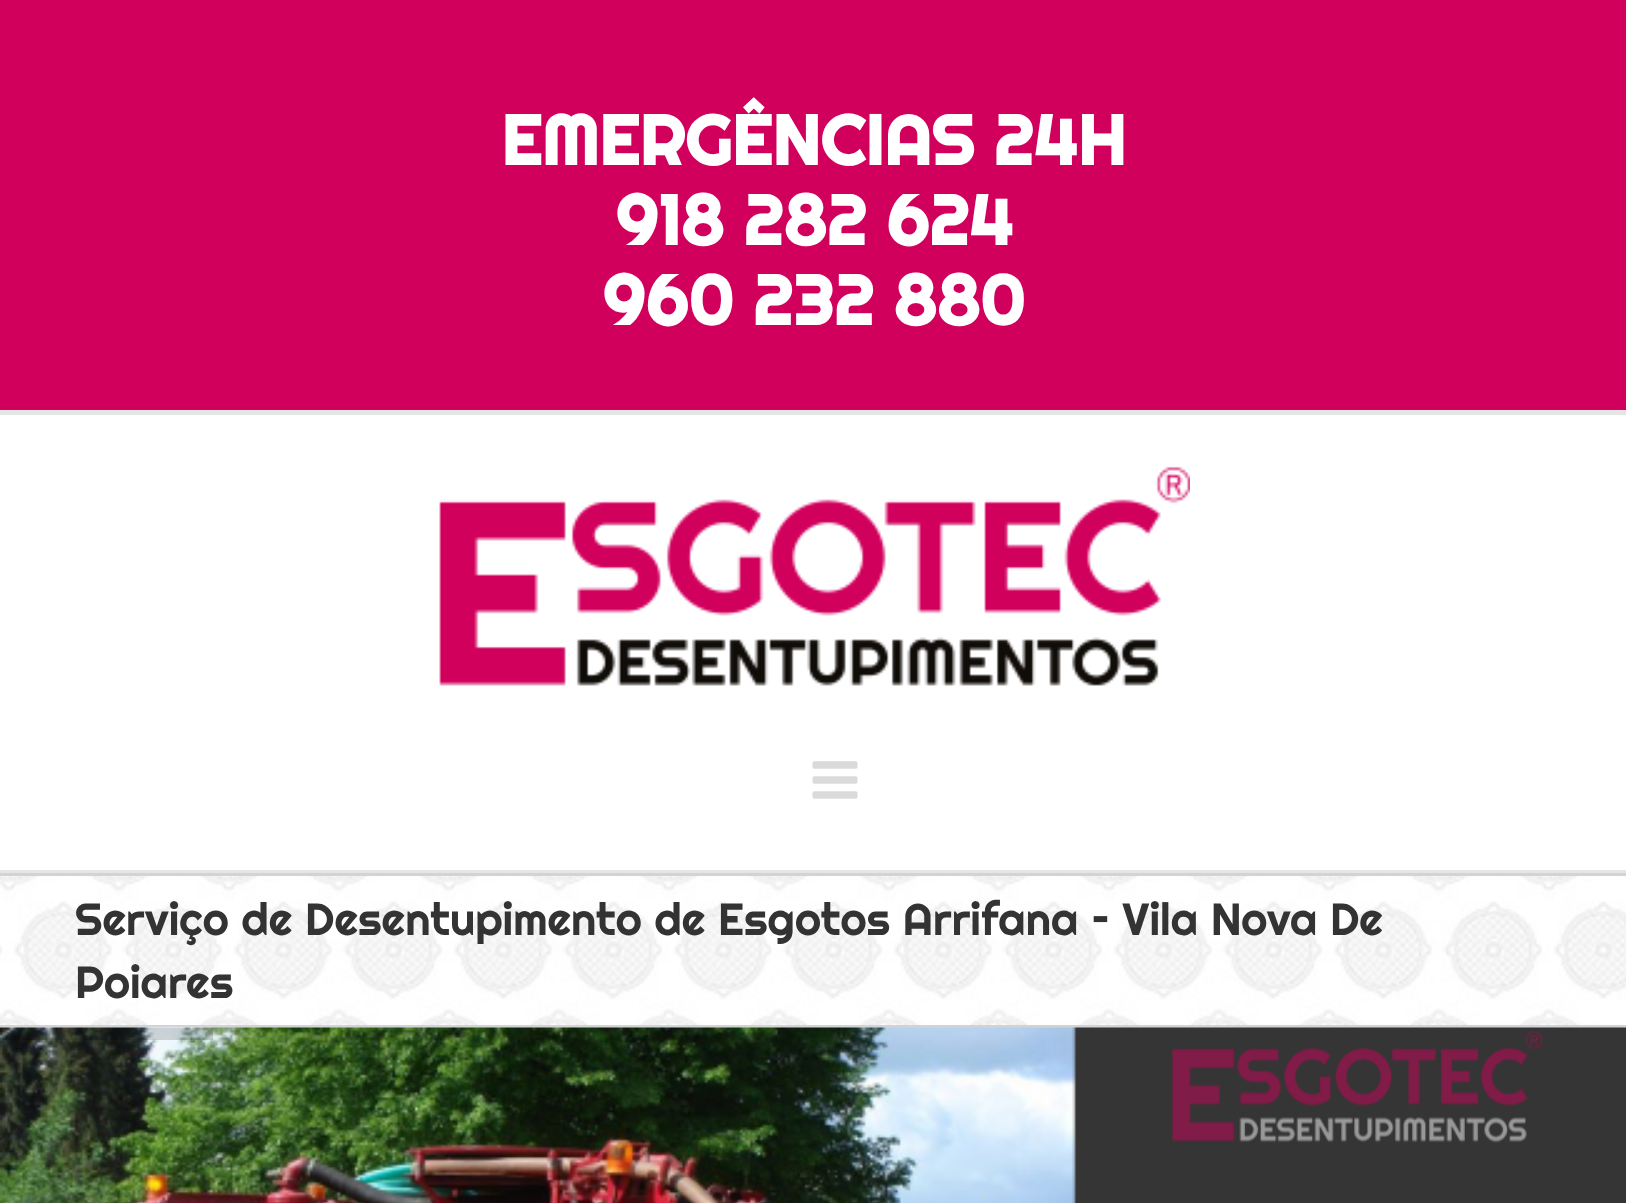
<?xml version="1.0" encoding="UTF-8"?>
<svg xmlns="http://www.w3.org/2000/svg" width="1626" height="1203">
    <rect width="100%" height="100%" fill="#FFFFFF"/>
    <rect x="0" y="0" width="1626" height="410" fill="#D1005D"/>
    <rect x="0" y="410" width="1626" height="5" fill="#E5E5E5"/>
    <text x="501" y="165" font-family="Righteous" font-size="70" font-weight="700" fill="#FFFFFF">EMERGÊNCIAS 24H</text>
    <text x="615" y="245" font-family="Righteous" font-size="70" font-weight="700" fill="#FFFFFF">918 282 624</text>
    <text x="602" y="325" font-family="Righteous" font-size="70" font-weight="700" fill="#FFFFFF">960 232 880</text>
    <rect x="0" y="870" width="1626" height="3" fill="#E5E5E5"/>
    <image x="439" y="466" width="751" height="220" href="img_01.png"/>
    <image x="812" y="761" width="46" height="38" href="img_02.png"/>
    <image x="0" y="876" width="1626" height="149" href="img_03.png"/>
    <rect x="0" y="873" width="1626" height="3" fill="#D2D3D4"/>
    <rect x="0" y="1025" width="1626" height="3" fill="#D2D3D4"/>
    <text font-family="Righteous" font-size="45" fill="#333333">
        <tspan x="75" y="935">Serviço de Desentupimento de Esgotos Arrifana – Vila Nova De</tspan>
        <tspan x="75" y="998">Poiares</tspan>
    </text>
    <image x="0" y="1027" width="1626" height="176" href="img_04.png"/>
    <image x="1172" y="1031" width="371" height="112" href="img_05.png"/>
    <rect x="0" y="1028" width="213" height="12" fill="#000000" fill-opacity="0.15"/>
</svg>
